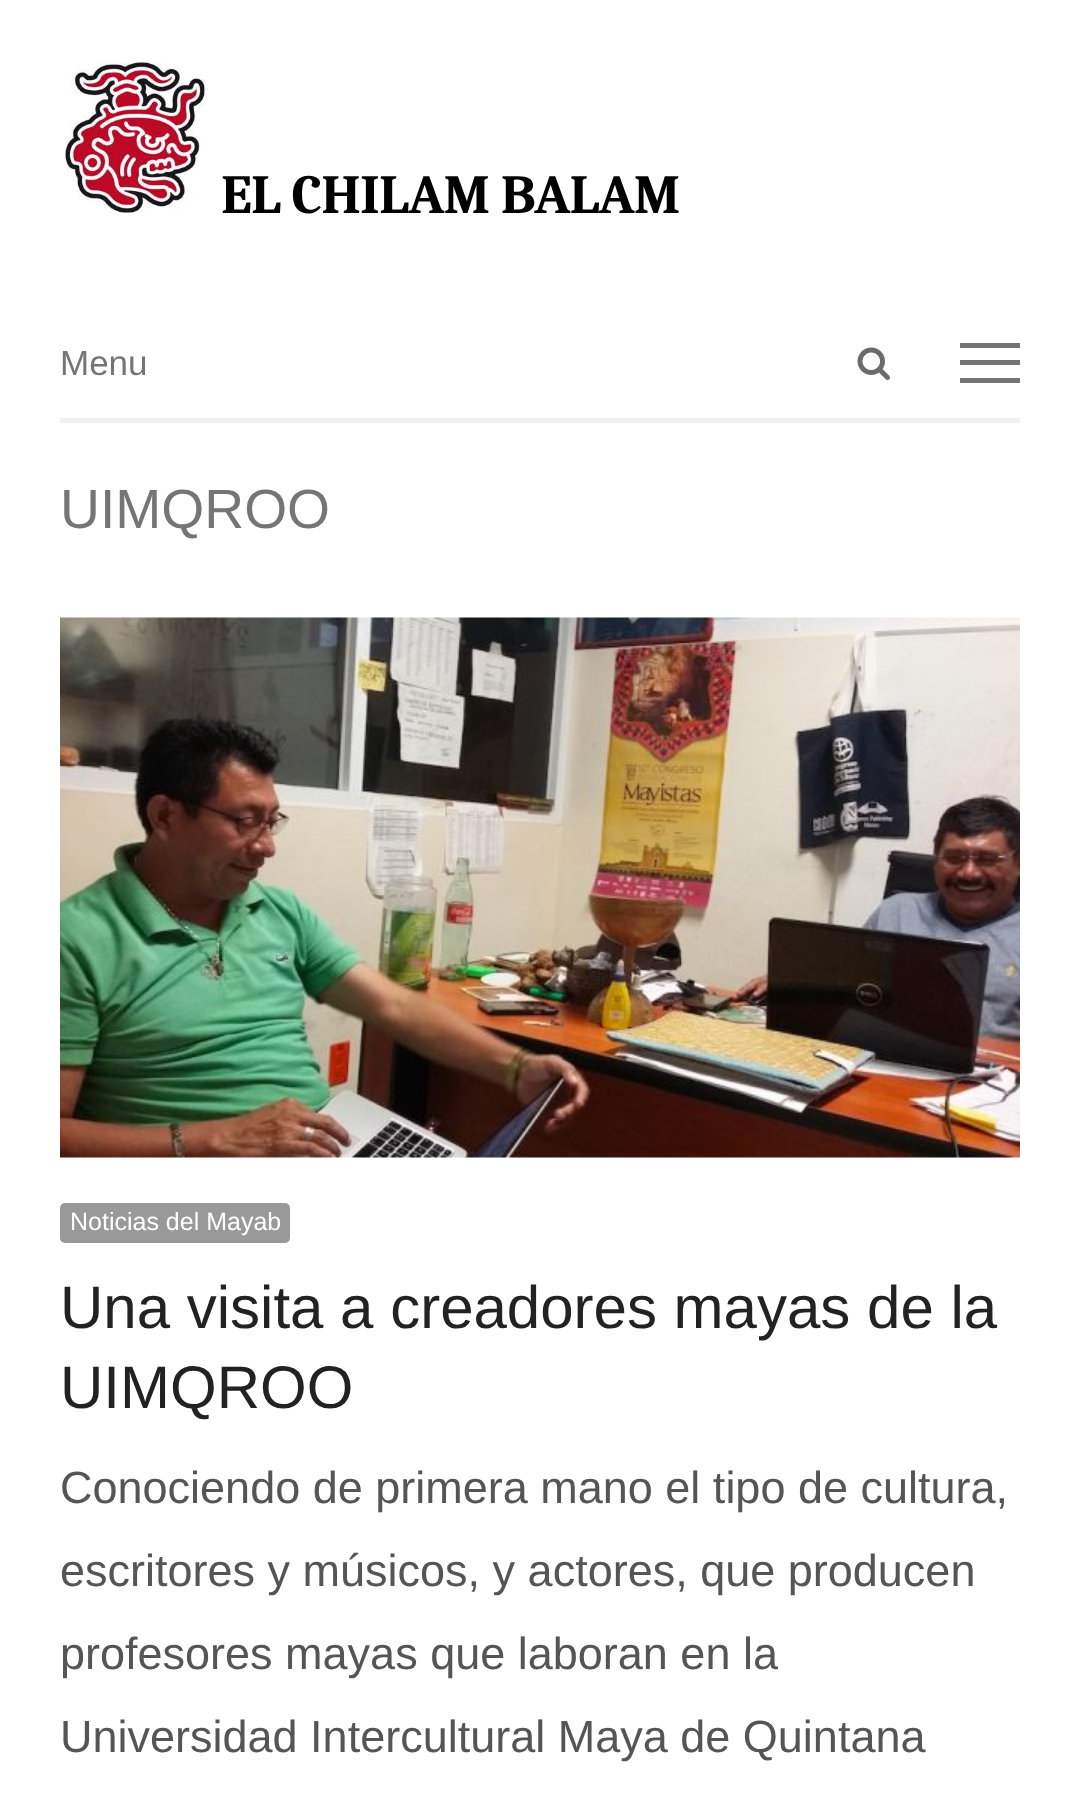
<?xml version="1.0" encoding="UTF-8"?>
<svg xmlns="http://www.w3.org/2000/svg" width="1078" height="1815">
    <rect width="100%" height="100%" fill="#FFFFFF"/>
    <image x="65" y="62" width="140" height="151" href="img_01.png"/>
    <text x="221" y="213" font-family="Caladea" font-size="55.25" font-weight="700" letter-spacing="-0.8" fill="#000000">EL CHILAM BALAM</text>
    <rect x="60" y="418" width="960" height="5" fill="#F0F0F0"/>
    <text x="60" y="375" font-family="Liberation Sans" font-size="35" fill="#757575">Menu</text>
    <rect x="960" y="343" width="60" height="5" fill="#757575"/>
    <rect x="960" y="360" width="60" height="5" fill="#757575"/>
    <rect x="960" y="378" width="60" height="5" fill="#757575"/>
    <image x="857" y="347" width="33" height="33" href="img_02.png"/>
    <text x="60" y="528" font-family="Liberation Sans" font-size="55.25" fill="#757575">UIMQROO</text>
    <image x="60" y="617" width="960" height="541" href="img_03.png"/>
    <rect x="60" y="1203" width="230" height="40" rx="5" fill="#999999"/>
    <text x="70" y="1230" font-family="Liberation Sans" font-size="25" fill="#FFFFFF">Noticias del Mayab</text>
    <text font-family="Liberation Sans" font-size="60" fill="#222222">
        <tspan x="60" y="1328">Una visita a creadores mayas de la</tspan>
        <tspan x="60" y="1408">UIMQROO</tspan>
    </text>
    <text font-family="Liberation Sans" font-size="45" fill="#555555">
        <tspan x="60" y="1503">Conociendo de primera mano el tipo de cultura,</tspan>
        <tspan x="60" y="1586">escritores y músicos, y actores, que producen</tspan>
        <tspan x="60" y="1669">profesores mayas que laboran en la</tspan>
        <tspan x="60" y="1752">Universidad Intercultural Maya de Quintana</tspan>
    </text>
</svg>
